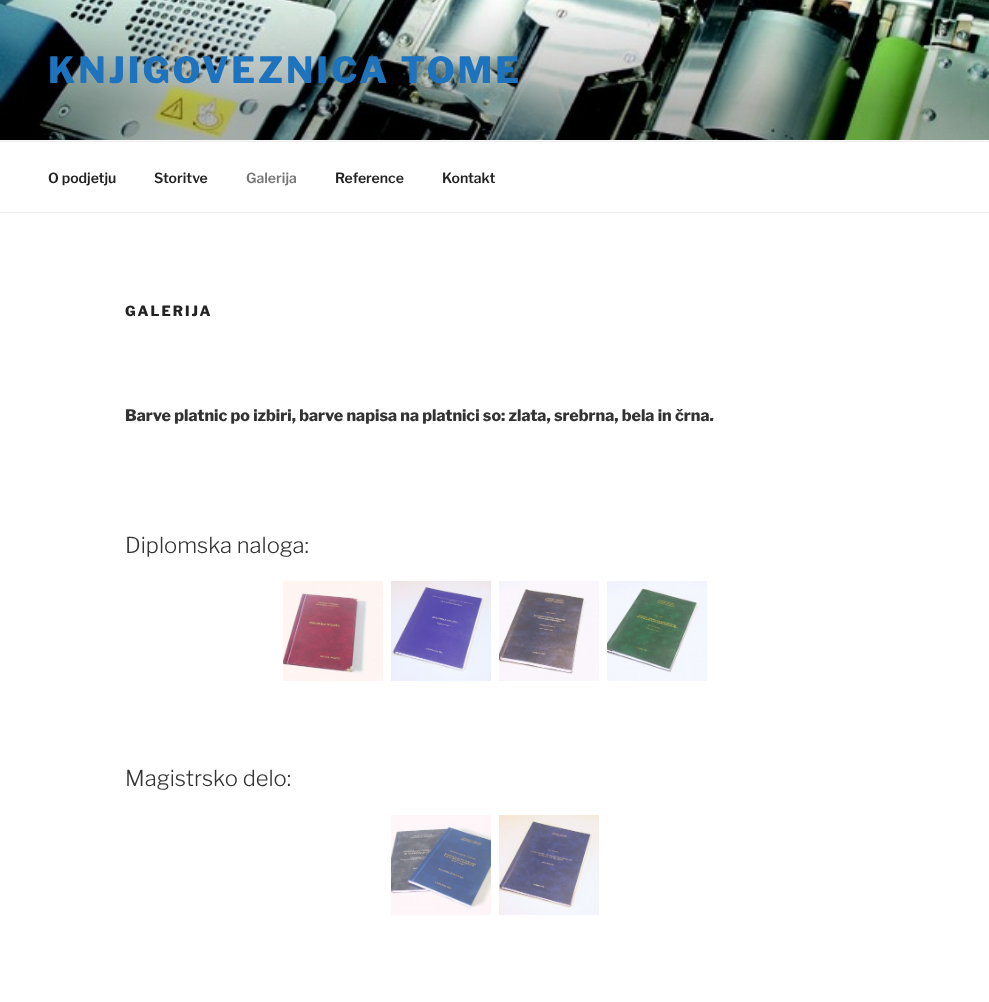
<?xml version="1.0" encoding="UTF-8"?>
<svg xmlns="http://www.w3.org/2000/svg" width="989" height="1002">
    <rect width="100%" height="100%" fill="#FFFFFF"/>
    <rect x="0" y="140" width="989" height="1" fill="#FAFAFA"/>
    <image x="0" y="0" width="989" height="140" href="img_01.png"/>
    <text x="48" y="83" font-family="Libre Franklin" font-size="36" font-weight="800" letter-spacing="2.9" fill="#1E73BE">KNJIGOVEZNICA TOME</text>
    <rect x="0" y="141" width="989" height="1" fill="#EEEEEE"/>
    <rect x="0" y="212" width="989" height="1" fill="#EEEEEE"/>
    <text x="48" y="183" font-family="Libre Franklin" font-size="14" font-weight="600" fill="#222222">O podjetju</text>
    <text x="154" y="183" font-family="Libre Franklin" font-size="14" font-weight="600" fill="#222222">Storitve</text>
    <text x="246" y="183" font-family="Libre Franklin" font-size="14" font-weight="600" fill="#767676">Galerija</text>
    <text x="335" y="183" font-family="Libre Franklin" font-size="14" font-weight="600" fill="#222222">Reference</text>
    <text x="442" y="183" font-family="Libre Franklin" font-size="14" font-weight="600" fill="#222222">Kontakt</text>
    <text x="125" y="316" font-family="Libre Franklin" font-size="14" font-weight="800" letter-spacing="2" fill="#222222">GALERIJA</text>
    <text x="125" y="421" font-family="Libre Franklin" font-size="16" font-weight="800" fill="#333333">Barve platnic po izbiri, barve napisa na platnici so: zlata, srebrna, bela in črna.</text>
    <text x="125" y="553" font-family="Libre Franklin" font-size="22" font-weight="300" fill="#333333">Diplomska naloga:</text>
    <image x="283" y="581" width="100" height="100" href="img_02.png"/>
    <image x="391" y="581" width="100" height="100" href="img_03.png"/>
    <image x="499" y="581" width="100" height="100" href="img_04.png"/>
    <image x="607" y="581" width="100" height="100" href="img_05.png"/>
    <text x="125" y="786" font-family="Libre Franklin" font-size="22" font-weight="300" fill="#333333">Magistrsko delo:</text>
    <image x="391" y="815" width="100" height="100" href="img_06.png"/>
    <image x="499" y="815" width="100" height="100" href="img_07.png"/>
</svg>
